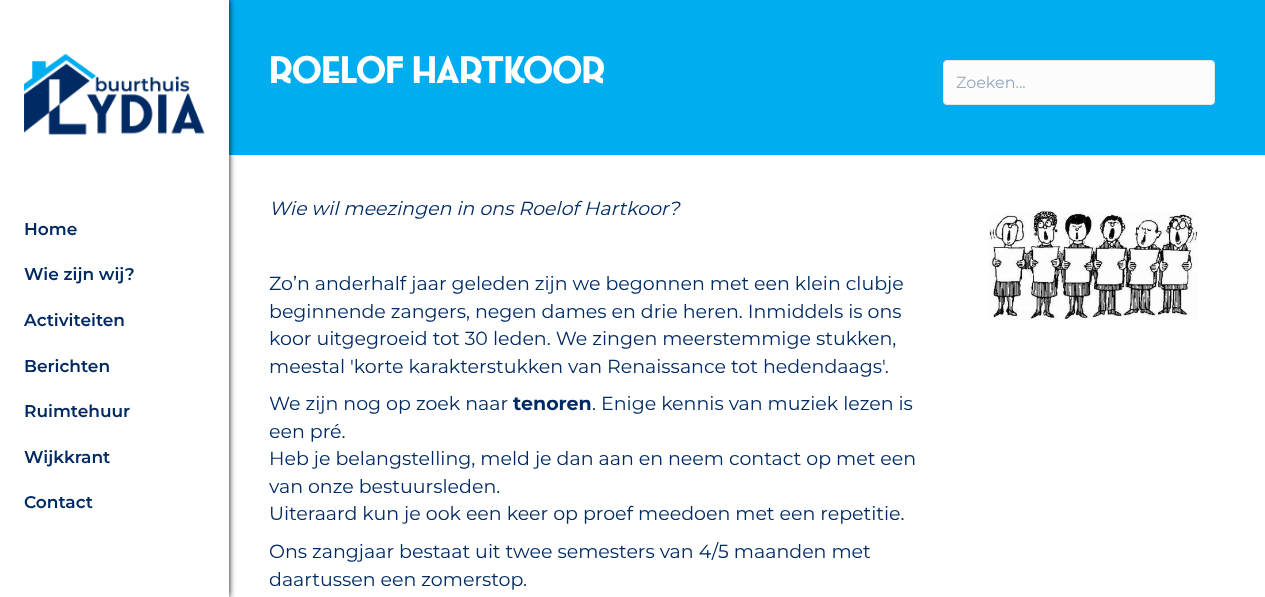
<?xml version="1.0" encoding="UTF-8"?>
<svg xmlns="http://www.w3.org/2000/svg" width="1265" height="597">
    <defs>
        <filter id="blur1" x="-50%" y="-200%" width="200%" height="500%"><feGaussianBlur stdDeviation="3"/></filter>
    </defs>
    <rect width="100%" height="100%" fill="#FFFFFF"/>
    <rect x="229" y="0" width="1036" height="155" fill="#00ADEF"/>
    <rect x="0" y="0" width="229" height="597" fill="#0A0A0A" filter="url(#blur1)"/>
    <rect x="0" y="0" width="229" height="597" fill="#FFFFFF"/>
    <image x="24" y="53" width="181" height="82" href="img_01.png"/>
    <text x="24" y="235" font-family="Montserrat" font-size="17" font-weight="600" fill="#002A64">Home</text>
    <text x="24" y="280" font-family="Montserrat" font-size="17" font-weight="600" fill="#002A64">Wie zijn wij?</text>
    <text x="24" y="326" font-family="Montserrat" font-size="17" font-weight="600" fill="#002A64">Activiteiten</text>
    <text x="24" y="372" font-family="Montserrat" font-size="17" font-weight="600" fill="#002A64">Berichten</text>
    <text x="24" y="417" font-family="Montserrat" font-size="17" font-weight="600" fill="#002A64">Ruimtehuur</text>
    <text x="24" y="463" font-family="Montserrat" font-size="17" font-weight="600" fill="#002A64">Wijkkrant</text>
    <text x="24" y="508" font-family="Montserrat" font-size="17" font-weight="600" fill="#002A64">Contact</text>
    <text x="269" y="83" font-family="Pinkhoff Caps" font-size="35" font-weight="700" fill="#FFFFFF">Roelof Hartkoor</text>
    <rect x="943.5" y="60.5" width="271" height="44" rx="3.5" fill="#FCFCFC" stroke="#E6E6E6"/>
    <text x="956" y="88" font-family="Montserrat" font-size="16" fill="#97A8BF">Zoeken...</text>
    <text x="269" y="215" font-family="Montserrat" font-size="19" font-style="italic" fill="#002A64">Wie wil meezingen in ons Roelof Hartkoor?</text>
    <text font-family="Montserrat" font-size="19" fill="#002A64">
        <tspan x="269" y="290">Zo’n anderhalf jaar geleden zijn we begonnen met een klein clubje</tspan>
        <tspan x="269" y="318">beginnende zangers, negen dames en drie heren. Inmiddels is ons</tspan>
        <tspan x="269" y="345">koor uitgegroeid tot 30 leden. We zingen meerstemmige stukken,</tspan>
        <tspan x="269" y="373">meestal 'korte karakterstukken van Renaissance tot hedendaags'.</tspan>
        <tspan x="269" y="410">We zijn nog op zoek naar</tspan>
    </text>
    <text x="513" y="410" font-family="Montserrat" font-size="19" font-weight="700" fill="#002A64">tenoren</text>
    <text x="592" y="410" font-family="Montserrat" font-size="19" fill="#002A64">. Enige kennis van muziek lezen is</text>
    <text font-family="Montserrat" font-size="19" fill="#002A64">
        <tspan x="269" y="438">een pré.</tspan>
        <tspan x="269" y="465">Heb je belangstelling, meld je dan aan en neem contact op met een</tspan>
        <tspan x="269" y="493">van onze bestuursleden.</tspan>
        <tspan x="269" y="520">Uiteraard kun je ook een keer op proef meedoen met een repetitie.</tspan>
    </text>
    <text font-family="Montserrat" font-size="19" fill="#002A64">
        <tspan x="269" y="558">Ons zangjaar bestaat uit twee semesters van 4/5 maanden met</tspan>
        <tspan x="269" y="586">daartussen een zomerstop.</tspan>
    </text>
    <image x="989" y="210" width="209" height="110" href="img_02.png"/>
</svg>
